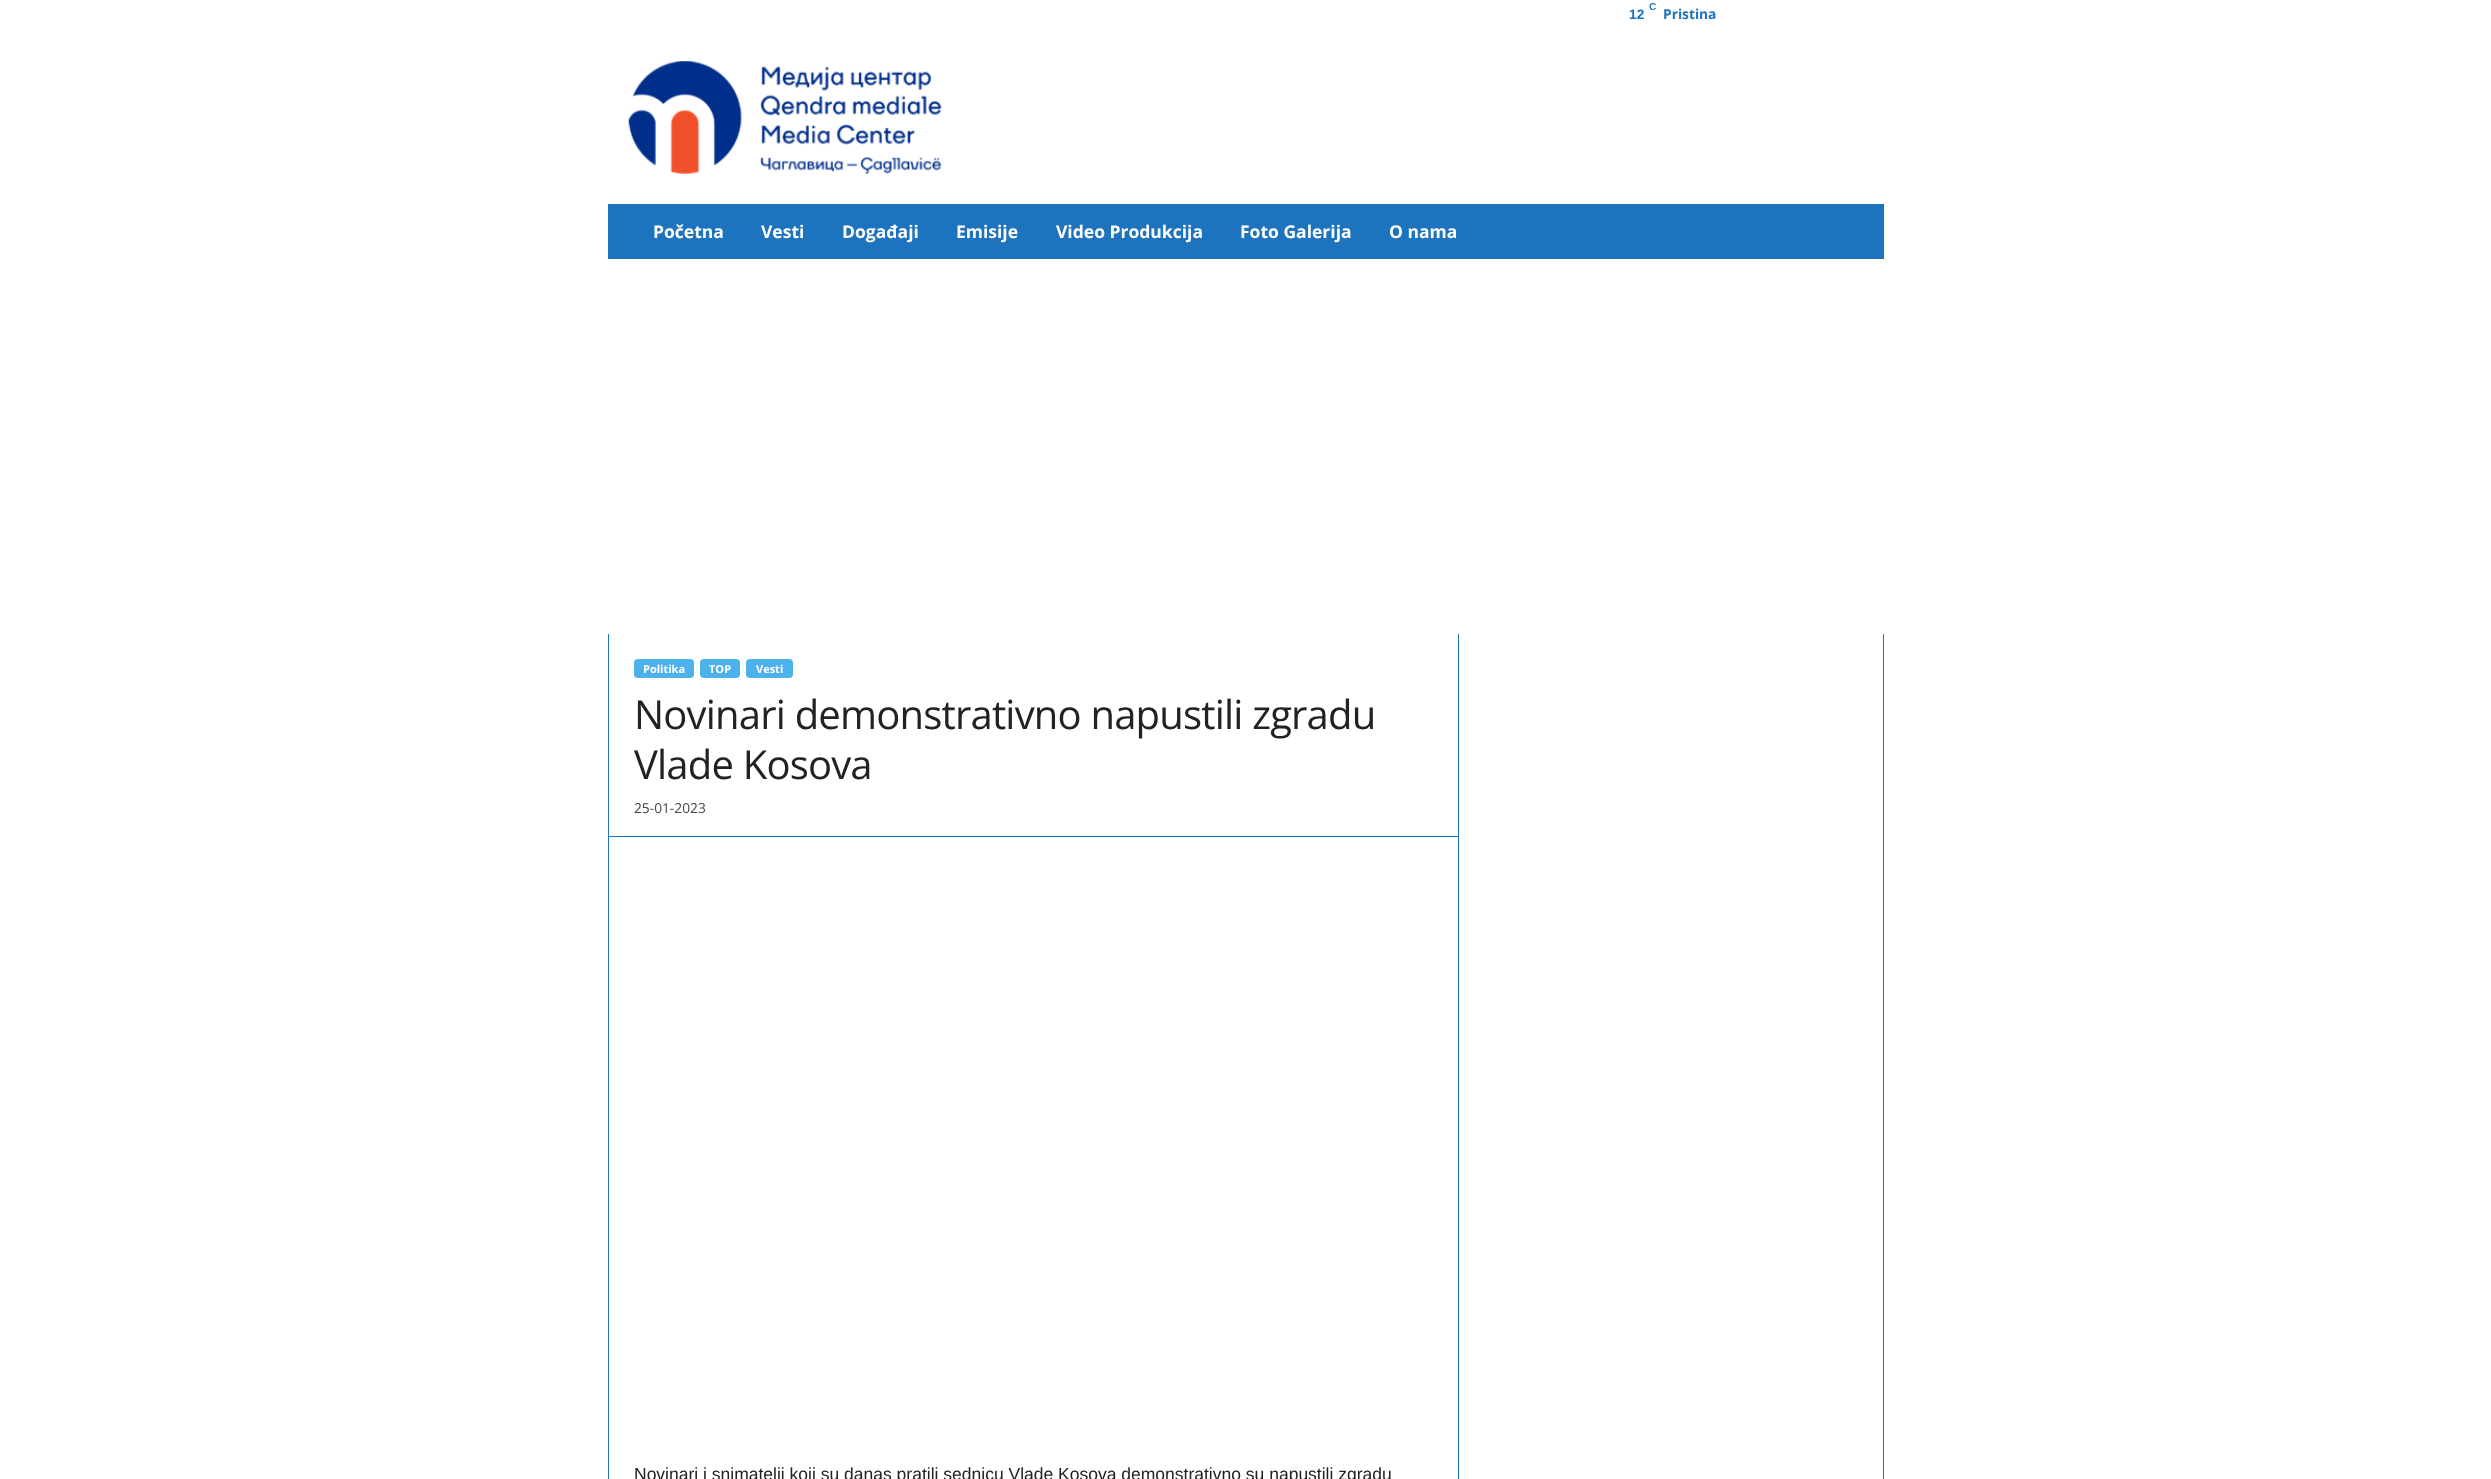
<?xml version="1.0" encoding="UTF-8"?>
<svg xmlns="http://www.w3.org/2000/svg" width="2491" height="1479">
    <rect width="100%" height="100%" fill="#FFFFFF"/>
    <text x="1649" y="10" font-family="Liberation Sans" font-size="10" font-weight="700" fill="#1E73BE">C</text>
    <text x="1629" y="19" font-family="Liberation Sans" font-size="13.75" font-weight="700" fill="#1E73BE">12</text>
    <text x="1663" y="19" font-family="Open Sans" font-size="13.75" font-weight="700" fill="#1E73BE">Pristina</text>
    <image x="628" y="61" width="314" height="113" href="img_01.png"/>
    <rect x="608" y="204" width="1276" height="55" fill="#1E73BE"/>
    <text x="653" y="238" font-family="Open Sans" font-size="17.5" font-weight="700" fill="#FFFFFF">Početna</text>
    <text x="761" y="238" font-family="Open Sans" font-size="17.5" font-weight="700" fill="#FFFFFF">Vesti</text>
    <text x="842" y="238" font-family="Open Sans" font-size="17.5" font-weight="700" fill="#FFFFFF">Događaji</text>
    <text x="956" y="238" font-family="Open Sans" font-size="17.5" font-weight="700" fill="#FFFFFF">Emisije</text>
    <text x="1056" y="238" font-family="Open Sans" font-size="17.5" font-weight="700" fill="#FFFFFF">Video Produkcija</text>
    <text x="1240" y="238" font-family="Open Sans" font-size="17.5" font-weight="700" fill="#FFFFFF">Foto Galerija</text>
    <text x="1389" y="238" font-family="Open Sans" font-size="17.5" font-weight="700" fill="#FFFFFF">O nama</text>
    <rect x="608" y="634" width="1" height="845" fill="#1E73BE"/>
    <rect x="634" y="659" width="60" height="19" rx="4" fill="#4DB2EC"/>
    <text x="643" y="673" font-family="Open Sans" font-size="11" font-weight="700" fill="#FFFFFF">Politika</text>
    <rect x="700" y="659" width="40" height="19" rx="4" fill="#4DB2EC"/>
    <text x="709" y="673" font-family="Open Sans" font-size="11" font-weight="700" fill="#FFFFFF">TOP</text>
    <rect x="746" y="659" width="47" height="19" rx="4" fill="#4DB2EC"/>
    <text x="756" y="673" font-family="Open Sans" font-size="11" font-weight="700" fill="#FFFFFF">Vesti</text>
    <text font-family="Open Sans" font-size="40" letter-spacing="-0.8" fill="#222222">
        <tspan x="634" y="729">Novinari demonstrativno napustili zgradu</tspan>
        <tspan x="634" y="779">Vlade Kosova</tspan>
    </text>
    <text x="634" y="813" font-family="Open Sans" font-size="13.75" fill="#444444">25-01-2023</text>
    <rect x="609" y="836" width="849" height="1" fill="#1E73BE"/>
    <text x="634" y="1480" font-family="Liberation Sans" font-size="17.5" fill="#222222">Novinari i snimatelji koji su danas pratili sednicu Vlade Kosova demonstrativno su napustili zgradu</text>
    <rect x="1458" y="634" width="1" height="845" fill="#1E73BE"/>
    <rect x="1883" y="634" width="1" height="845" fill="#1E73BE"/>
</svg>
